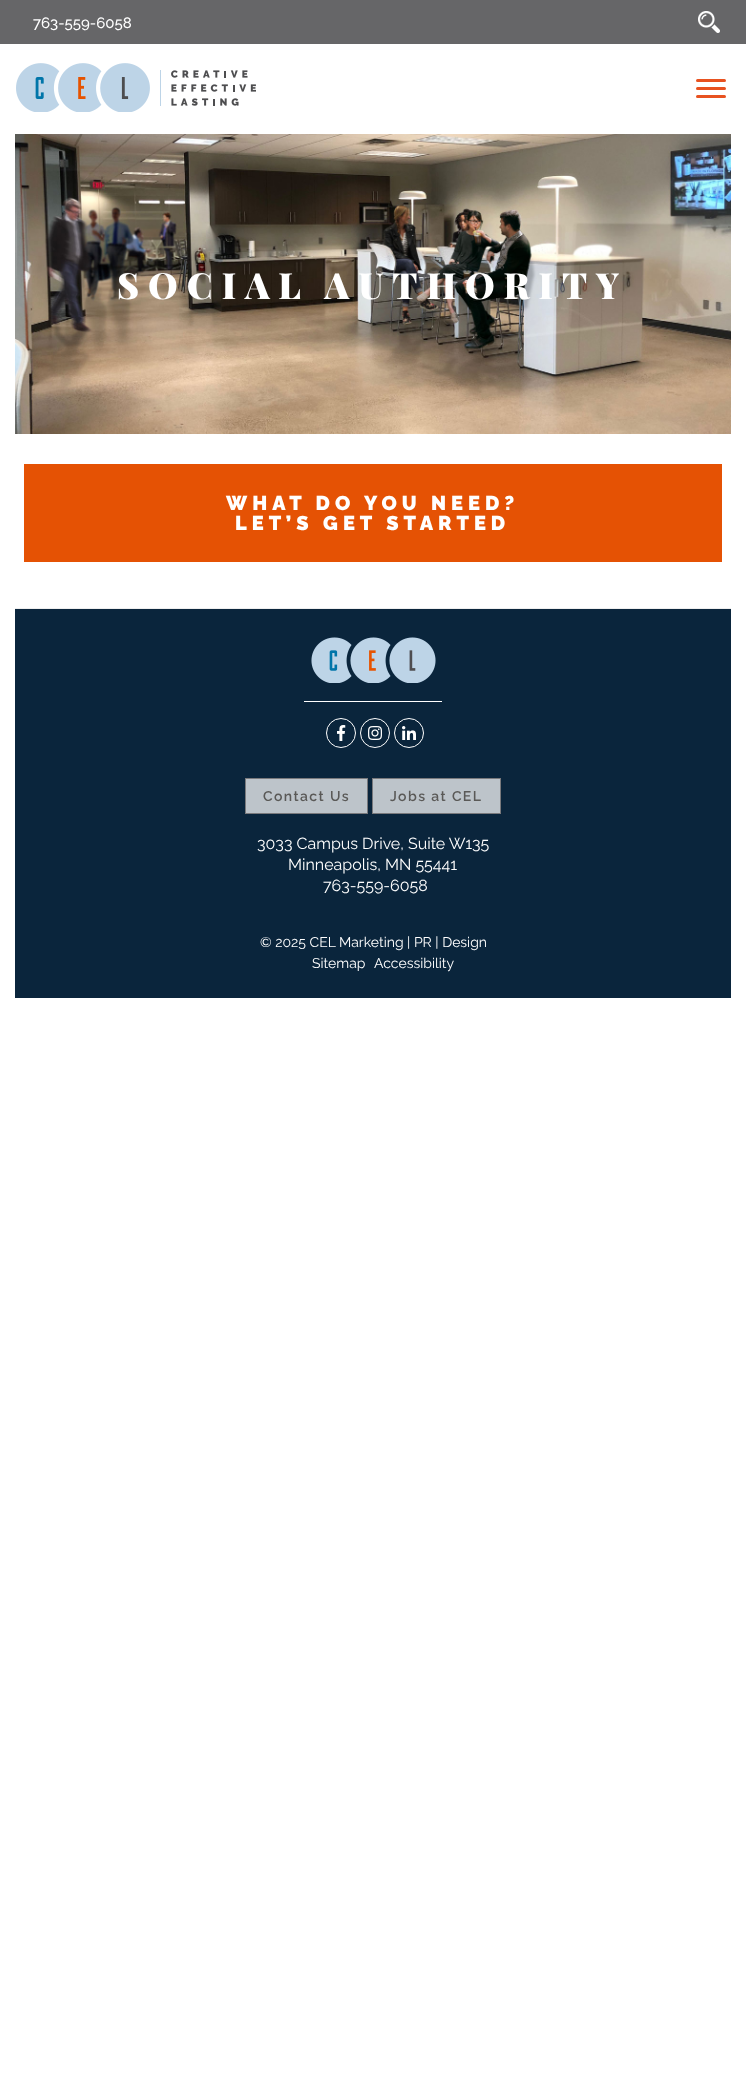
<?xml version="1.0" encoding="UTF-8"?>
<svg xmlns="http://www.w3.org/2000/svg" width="746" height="2079">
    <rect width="100%" height="100%" fill="#FFFFFF"/>
    <rect x="0" y="0" width="746" height="44" fill="#666668"/>
    <text x="33" y="28" font-family="Raleway" font-size="15" font-weight="500" fill="#FFFFFF">763-559-6058</text>
    <image x="698" y="11" width="22" height="22" href="img_01.png"/>
    <image x="16" y="63" width="240" height="49" href="img_02.png"/>
    <rect x="696" y="79" width="30" height="3" rx="1.5" fill="#E85220"/>
    <rect x="696" y="87" width="30" height="3" rx="1.5" fill="#E85220"/>
    <rect x="696" y="95" width="30" height="3" rx="1.5" fill="#E85220"/>
    <image x="15" y="134" width="716" height="300" href="img_03.png"/>
    <text x="117" y="299" font-family="Playfair Display" font-size="36" font-weight="900" letter-spacing="9" fill="#FFFFFF">SOCIAL AUTHORITY</text>
    <rect x="24" y="464" width="698" height="98" fill="#E55204"/>
    <text x="226" y="510" font-family="Raleway" font-size="20" font-weight="900" letter-spacing="5" fill="#FFFFFF">WHAT DO YOU NEED?</text>
    <text x="235" y="530" font-family="Raleway" font-size="20" font-weight="900" letter-spacing="5" fill="#FFFFFF">LET’S GET STARTED</text>
    <rect x="15" y="609" width="716" height="389" fill="#0A253C"/>
    <rect x="15" y="608" width="716" height="1" fill="#EEEEEE"/>
    <image x="311" y="637" width="125" height="46" href="img_04.png"/>
    <rect x="304" y="701" width="138" height="1" fill="#FFFFFF"/>
    <circle cx="341" cy="733" r="14.5" fill="none" stroke="#FFFFFF"/>
    <image x="337" y="725" width="9" height="16" href="img_05.png"/>
    <circle cx="375" cy="733" r="14.5" fill="none" stroke="#FFFFFF"/>
    <image x="368" y="726" width="14" height="14" href="img_06.png"/>
    <circle cx="409" cy="733" r="14.5" fill="none" stroke="#FFFFFF"/>
    <image x="402" y="726" width="14" height="14" href="img_07.png"/>
    <rect x="245.5" y="778.5" width="122" height="35" fill="#BDC4CA" stroke="#79797C"/>
    <text x="263" y="801" font-family="Raleway" font-size="14" font-weight="600" letter-spacing="1.4" fill="#5A5957">Contact Us</text>
    <rect x="372.5" y="778.5" width="128" height="35" fill="#BDC4CA" stroke="#79797C"/>
    <text x="390" y="801" font-family="Raleway" font-size="14" font-weight="600" letter-spacing="1.4" fill="#5A5957">Jobs at CEL</text>
    <text x="257" y="849" font-family="Raleway" font-size="16" fill="#FFFFFF">3033 Campus Drive, Suite W135</text>
    <text x="288" y="870" font-family="Raleway" font-size="16" fill="#FFFFFF">Minneapolis, MN 55441</text>
    <text x="323" y="891" font-family="Raleway" font-size="16" fill="#FFFFFF">763-559-6058</text>
    <text x="260" y="947" font-family="Raleway" font-size="14" fill="#FFFFFF">© 2025 CEL Marketing | PR | Design</text>
    <text x="312" y="968" font-family="Raleway" font-size="14" fill="#FFFFFF">Sitemap</text>
    <text x="374" y="968" font-family="Raleway" font-size="14" fill="#FFFFFF">Accessibility</text>
</svg>
